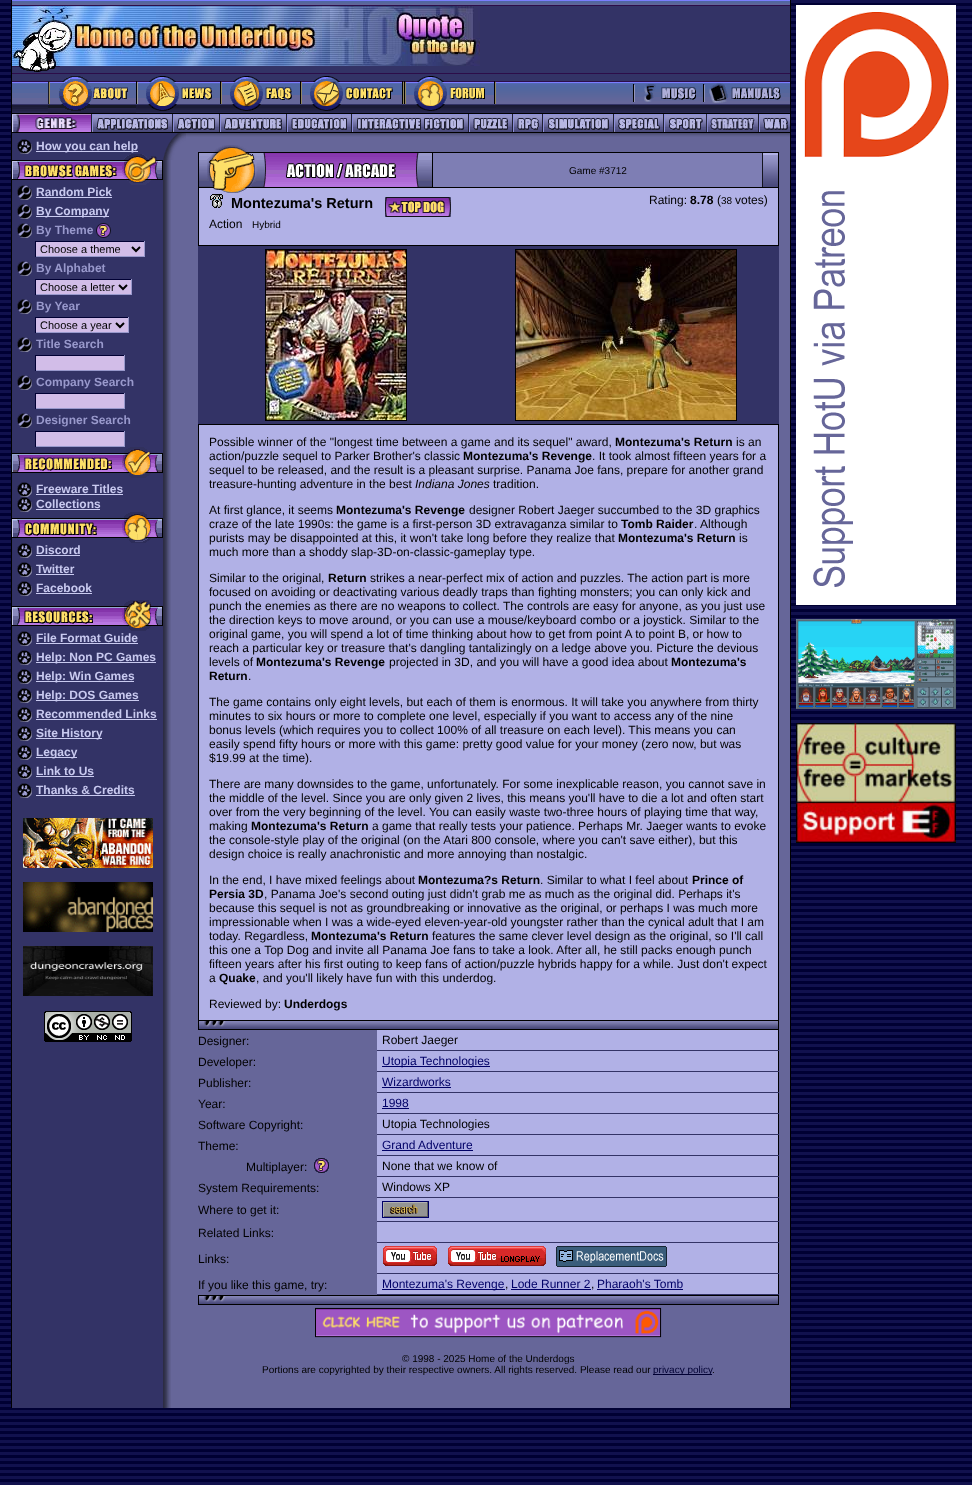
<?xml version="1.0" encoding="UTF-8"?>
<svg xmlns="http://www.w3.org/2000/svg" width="972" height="1485">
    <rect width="100%" height="100%" fill="#FFFFFF"/>
    <image x="0" y="1408" width="972" height="77" href="img_01.png"/>
    <rect x="0" y="1407" width="11" height="1" fill="#000033"/>
    <image x="0" y="0" width="11" height="1407" href="img_02.png"/>
    <rect x="11" y="0" width="1" height="1408" fill="#000000"/>
    <image x="12" y="0" width="778" height="6" href="img_03.png"/>
    <rect x="480" y="6" width="310" height="60" fill="#333366"/>
    <image x="12" y="6" width="310" height="60" href="img_04.png"/>
    <image x="322" y="6" width="158" height="60" href="img_05.png"/>
    <rect x="12" y="66" width="778" height="7" fill="#333366"/>
    <image x="12" y="66" width="48" height="6" href="img_06.png"/>
    <image x="12" y="73" width="36" height="40" href="img_07.png"/>
    <image x="48" y="73" width="88" height="40" href="img_08.png"/>
    <image x="136" y="73" width="84" height="40" href="img_09.png"/>
    <image x="220" y="73" width="80" height="40" href="img_10.png"/>
    <image x="300" y="73" width="104" height="40" href="img_11.png"/>
    <image x="404" y="73" width="92" height="40" href="img_12.png"/>
    <image x="496" y="73" width="137" height="40" href="img_13.png"/>
    <image x="633" y="73" width="70" height="40" href="img_14.png"/>
    <image x="703" y="73" width="87" height="40" href="img_15.png"/>
    <rect x="12" y="113" width="778" height="1" fill="#000000"/>
    <image x="12" y="114" width="79" height="18" href="img_16.png"/>
    <image x="91" y="114" width="81" height="18" href="img_17.png"/>
    <image x="172" y="114" width="47" height="18" href="img_18.png"/>
    <image x="219" y="114" width="67" height="18" href="img_19.png"/>
    <image x="286" y="114" width="65" height="18" href="img_20.png"/>
    <image x="351" y="114" width="117" height="18" href="img_21.png"/>
    <image x="468" y="114" width="44" height="18" href="img_22.png"/>
    <image x="512" y="114" width="30" height="18" href="img_23.png"/>
    <image x="542" y="114" width="71" height="18" href="img_24.png"/>
    <image x="613" y="114" width="50" height="18" href="img_25.png"/>
    <image x="663" y="114" width="43" height="18" href="img_26.png"/>
    <image x="706" y="114" width="52" height="18" href="img_27.png"/>
    <image x="758" y="114" width="32" height="18" href="img_28.png"/>
    <rect x="12" y="132" width="778" height="1" fill="#000000"/>
    <rect x="790" y="0" width="1" height="1408" fill="#000000"/>
    <rect x="791" y="1407" width="181" height="1" fill="#000033"/>
    <image x="791" y="0" width="170" height="1407" href="img_29.png"/>
    <image x="796" y="5" width="160" height="600" href="img_30.png"/>
    <image x="796" y="619" width="160" height="90" href="img_31.png"/>
    <image x="796" y="723" width="160" height="120" href="img_32.png"/>
    <image x="961" y="0" width="11" height="1407" href="img_02.png"/>
    <rect x="12" y="133" width="151" height="1275" fill="#333366"/>
    <image x="17" y="139" width="15" height="15" href="img_33.png"/>
    <rect x="36" y="151" width="102" height="1" fill="#C9CAF0"/>
    <text x="36" y="150" font-family="Liberation Sans" font-size="12" font-weight="700" fill="#C9CAF0">How you can help</text>
    <image x="12" y="154" width="151" height="31" href="img_34.png"/>
    <image x="17" y="185" width="15" height="15" href="img_35.png"/>
    <text x="36" y="196" font-family="Liberation Sans" font-size="12" font-weight="700" fill="#C9CAF0">Random Pick</text>
    <rect x="36" y="197" width="76" height="1" fill="#C9CAF0"/>
    <image x="17" y="204" width="15" height="15" href="img_35.png"/>
    <rect x="36" y="216" width="73" height="1" fill="#C9CAF0"/>
    <text x="36" y="215" font-family="Liberation Sans" font-size="12" font-weight="700" fill="#C9CAF0">By Company</text>
    <image x="17" y="223" width="15" height="15" href="img_35.png"/>
    <text x="36" y="234" font-family="Liberation Sans" font-size="12" font-weight="700" fill="#9999CC">By Theme</text>
    <image x="96" y="223" width="15" height="15" href="img_36.png"/>
    <rect x="36" y="242" width="108" height="14" fill="#D2BDE8"/>
    <rect x="35" y="241" width="110" height="1" fill="#000033"/>
    <rect x="144" y="241" width="1" height="16" fill="#9999CC"/>
    <rect x="35" y="256" width="110" height="1" fill="#9999CC"/>
    <rect x="35" y="241" width="1" height="16" fill="#000033"/>
    <path d="M 132 247 L 136 251 L 140 247" fill="none" stroke="#000000" stroke-width="2"/>
    <text x="40" y="253" font-family="Liberation Sans" font-size="11" fill="#000000">Choose a theme</text>
    <image x="17" y="261" width="15" height="15" href="img_35.png"/>
    <text x="36" y="272" font-family="Liberation Sans" font-size="12" font-weight="700" fill="#9999CC">By Alphabet</text>
    <rect x="36" y="280" width="95" height="14" fill="#D2BDE8"/>
    <rect x="35" y="279" width="97" height="1" fill="#000033"/>
    <rect x="131" y="279" width="1" height="16" fill="#9999CC"/>
    <rect x="35" y="294" width="97" height="1" fill="#9999CC"/>
    <rect x="35" y="279" width="1" height="16" fill="#000033"/>
    <path d="M 119 285 L 123 289 L 127 285" fill="none" stroke="#000000" stroke-width="2"/>
    <text x="40" y="291" font-family="Liberation Sans" font-size="11" fill="#000000">Choose a letter</text>
    <image x="17" y="299" width="15" height="15" href="img_35.png"/>
    <text x="36" y="310" font-family="Liberation Sans" font-size="12" font-weight="700" fill="#9999CC">By Year</text>
    <rect x="36" y="318" width="92" height="14" fill="#D2BDE8"/>
    <rect x="35" y="317" width="94" height="1" fill="#000033"/>
    <rect x="128" y="317" width="1" height="16" fill="#9999CC"/>
    <rect x="35" y="332" width="94" height="1" fill="#9999CC"/>
    <rect x="35" y="317" width="1" height="16" fill="#000033"/>
    <path d="M 116 323 L 120 327 L 124 323" fill="none" stroke="#000000" stroke-width="2"/>
    <text x="40" y="329" font-family="Liberation Sans" font-size="11" fill="#000000">Choose a year</text>
    <image x="17" y="337" width="15" height="15" href="img_35.png"/>
    <text x="36" y="348" font-family="Liberation Sans" font-size="12" font-weight="700" fill="#9999CC">Title Search</text>
    <rect x="36" y="356" width="88" height="14" fill="#D2BDE8"/>
    <rect x="35" y="355" width="90" height="1" fill="#000033"/>
    <rect x="124" y="355" width="1" height="16" fill="#9999CC"/>
    <rect x="35" y="370" width="90" height="1" fill="#9999CC"/>
    <rect x="35" y="355" width="1" height="16" fill="#000033"/>
    <image x="17" y="375" width="15" height="15" href="img_35.png"/>
    <text x="36" y="386" font-family="Liberation Sans" font-size="12" font-weight="700" fill="#9999CC">Company Search</text>
    <rect x="36" y="394" width="88" height="14" fill="#D2BDE8"/>
    <rect x="35" y="393" width="90" height="1" fill="#000033"/>
    <rect x="124" y="393" width="1" height="16" fill="#9999CC"/>
    <rect x="35" y="408" width="90" height="1" fill="#9999CC"/>
    <rect x="35" y="393" width="1" height="16" fill="#000033"/>
    <image x="17" y="413" width="15" height="15" href="img_35.png"/>
    <text x="36" y="424" font-family="Liberation Sans" font-size="12" font-weight="700" fill="#9999CC">Designer Search</text>
    <rect x="36" y="432" width="88" height="14" fill="#D2BDE8"/>
    <rect x="35" y="431" width="90" height="1" fill="#000033"/>
    <rect x="124" y="431" width="1" height="16" fill="#9999CC"/>
    <rect x="35" y="446" width="90" height="1" fill="#9999CC"/>
    <rect x="35" y="431" width="1" height="16" fill="#000033"/>
    <image x="12" y="447" width="151" height="31" href="img_37.png"/>
    <image x="17" y="482" width="15" height="15" href="img_33.png"/>
    <text x="36" y="493" font-family="Liberation Sans" font-size="12" font-weight="700" fill="#C9CAF0">Freeware Titles</text>
    <rect x="36" y="494" width="87" height="1" fill="#C9CAF0"/>
    <image x="17" y="497" width="15" height="15" href="img_33.png"/>
    <text x="36" y="508" font-family="Liberation Sans" font-size="12" font-weight="700" fill="#C9CAF0">Collections</text>
    <rect x="36" y="509" width="64" height="1" fill="#C9CAF0"/>
    <image x="12" y="512" width="151" height="31" href="img_38.png"/>
    <image x="17" y="543" width="15" height="15" href="img_33.png"/>
    <text x="36" y="554" font-family="Liberation Sans" font-size="12" font-weight="700" fill="#C9CAF0">Discord</text>
    <rect x="36" y="555" width="44" height="1" fill="#C9CAF0"/>
    <image x="17" y="562" width="15" height="15" href="img_33.png"/>
    <text x="36" y="573" font-family="Liberation Sans" font-size="12" font-weight="700" fill="#C9CAF0">Twitter</text>
    <rect x="36" y="574" width="38" height="1" fill="#C9CAF0"/>
    <image x="17" y="581" width="15" height="15" href="img_33.png"/>
    <text x="36" y="592" font-family="Liberation Sans" font-size="12" font-weight="700" fill="#C9CAF0">Facebook</text>
    <rect x="36" y="593" width="56" height="1" fill="#C9CAF0"/>
    <image x="12" y="600" width="151" height="31" href="img_39.png"/>
    <image x="17" y="631" width="15" height="15" href="img_33.png"/>
    <text x="36" y="642" font-family="Liberation Sans" font-size="12" font-weight="700" fill="#C9CAF0">File Format Guide</text>
    <rect x="36" y="643" width="102" height="1" fill="#C9CAF0"/>
    <image x="17" y="650" width="15" height="15" href="img_33.png"/>
    <rect x="36" y="662" width="120" height="1" fill="#C9CAF0"/>
    <text x="36" y="661" font-family="Liberation Sans" font-size="12" font-weight="700" fill="#C9CAF0">Help: Non PC Games</text>
    <image x="17" y="669" width="15" height="15" href="img_33.png"/>
    <rect x="36" y="681" width="98" height="1" fill="#C9CAF0"/>
    <text x="36" y="680" font-family="Liberation Sans" font-size="12" font-weight="700" fill="#C9CAF0">Help: Win Games</text>
    <image x="17" y="688" width="15" height="15" href="img_33.png"/>
    <rect x="36" y="700" width="103" height="1" fill="#C9CAF0"/>
    <text x="36" y="699" font-family="Liberation Sans" font-size="12" font-weight="700" fill="#C9CAF0">Help: DOS Games</text>
    <image x="17" y="707" width="15" height="15" href="img_33.png"/>
    <text x="36" y="718" font-family="Liberation Sans" font-size="12" font-weight="700" fill="#C9CAF0">Recommended Links</text>
    <rect x="36" y="719" width="121" height="1" fill="#C9CAF0"/>
    <image x="17" y="726" width="15" height="15" href="img_33.png"/>
    <rect x="36" y="738" width="66" height="1" fill="#C9CAF0"/>
    <text x="36" y="737" font-family="Liberation Sans" font-size="12" font-weight="700" fill="#C9CAF0">Site History</text>
    <image x="17" y="745" width="15" height="15" href="img_33.png"/>
    <rect x="36" y="757" width="41" height="1" fill="#C9CAF0"/>
    <text x="36" y="756" font-family="Liberation Sans" font-size="12" font-weight="700" fill="#C9CAF0">Legacy</text>
    <image x="17" y="764" width="15" height="15" href="img_33.png"/>
    <text x="36" y="775" font-family="Liberation Sans" font-size="12" font-weight="700" fill="#C9CAF0">Link to Us</text>
    <rect x="36" y="776" width="58" height="1" fill="#C9CAF0"/>
    <image x="17" y="783" width="15" height="15" href="img_33.png"/>
    <text x="36" y="794" font-family="Liberation Sans" font-size="12" font-weight="700" fill="#C9CAF0">Thanks &amp; Credits</text>
    <rect x="36" y="795" width="99" height="1" fill="#C9CAF0"/>
    <image x="23" y="818" width="130" height="50" href="img_40.png"/>
    <image x="23" y="882" width="130" height="50" href="img_41.png"/>
    <image x="23" y="946" width="130" height="50" href="img_42.png"/>
    <image x="44" y="1011" width="88" height="31" href="img_43.png"/>
    <rect x="171" y="141" width="15" height="1267" fill="#666699"/>
    <image x="163" y="160" width="8" height="1248" href="img_44.png"/>
    <image x="163" y="133" width="23" height="27" href="img_45.png"/>
    <rect x="186" y="137" width="604" height="1271" fill="#666699"/>
    <image x="186" y="133" width="604" height="4" href="img_46.png"/>
    <image x="198" y="145" width="235" height="48" href="img_47.png"/>
    <image x="762" y="152" width="17" height="41" href="img_48.png"/>
    <rect x="433" y="152" width="329" height="1" fill="#000000"/>
    <rect x="433" y="153" width="329" height="34" fill="#7E7EB4"/>
    <text x="569" y="174" font-family="Liberation Sans" font-size="10" fill="#000000">Game #3712</text>
    <rect x="433" y="187" width="329" height="1" fill="#000000"/>
    <rect x="433" y="188" width="329" height="5" fill="#B1B1E6"/>
    <rect x="198" y="193" width="1" height="52" fill="#000000"/>
    <rect x="199" y="193" width="579" height="52" fill="#B1B1E6"/>
    <rect x="778" y="193" width="1" height="52" fill="#000000"/>
    <image x="210" y="194" width="13" height="14" href="img_49.png"/>
    <text x="231" y="208" font-family="Liberation Sans" font-size="14.5" font-weight="700" fill="#000000">Montezuma's Return</text>
    <image x="385" y="197" width="66" height="20" href="img_50.png"/>
    <text x="209" y="228" font-family="Liberation Sans" font-size="12" fill="#000000">Action</text>
    <text x="252" y="228" font-family="Liberation Sans" font-size="10" fill="#000000">Hybrid</text>
    <text x="649" y="204" font-family="Liberation Sans" font-size="12" fill="#000000">Rating:</text>
    <text x="690" y="204" font-family="Liberation Sans" font-size="12" font-weight="700" fill="#000000">8.78</text>
    <text x="717" y="204" font-family="Liberation Sans" font-size="12" fill="#000000">(</text>
    <text x="721" y="204" font-family="Liberation Sans" font-size="10" fill="#000000">38</text>
    <text x="735" y="204" font-family="Liberation Sans" font-size="12" fill="#000000">votes)</text>
    <rect x="198" y="245" width="581" height="1" fill="#000000"/>
    <rect x="198" y="246" width="581" height="178" fill="#333366"/>
    <rect x="265.5" y="249.5" width="141" height="171" fill="none" stroke="#000000"/>
    <image x="266" y="250" width="140" height="170" href="img_51.png"/>
    <rect x="515.5" y="249.5" width="221" height="171" fill="none" stroke="#000000"/>
    <image x="516" y="250" width="220" height="170" href="img_52.png"/>
    <rect x="198" y="424" width="581" height="1" fill="#000000"/>
    <rect x="198" y="425" width="1" height="595" fill="#000000"/>
    <rect x="199" y="425" width="579" height="595" fill="#B1B1E6"/>
    <rect x="778" y="425" width="1" height="595" fill="#000000"/>
    <text x="209" y="446" font-family="Liberation Sans" font-size="12" fill="#000000">Possible winner of the "longest time between a game and its sequel" award,</text>
    <text x="615" y="446" font-family="Liberation Sans" font-size="12" font-weight="700" fill="#000000">Montezuma's Return</text>
    <text x="736" y="446" font-family="Liberation Sans" font-size="12" fill="#000000">is an</text>
    <text x="209" y="460" font-family="Liberation Sans" font-size="12" fill="#000000">action/puzzle sequel to Parker Brother's classic</text>
    <text x="463" y="460" font-family="Liberation Sans" font-size="12" font-weight="700" fill="#000000">Montezuma's Revenge</text>
    <text x="592" y="460" font-family="Liberation Sans" font-size="12" fill="#000000">. It took almost fifteen years for a</text>
    <text font-family="Liberation Sans" font-size="12" fill="#000000">
        <tspan x="209" y="474">sequel to be released, and the result is a pleasant surprise. Panama Joe fans, prepare for another grand</tspan>
        <tspan x="209" y="488">treasure-hunting adventure in the best</tspan>
    </text>
    <text x="415" y="488" font-family="Liberation Sans" font-size="12" font-style="italic" fill="#000000">Indiana Jones</text>
    <text x="493" y="488" font-family="Liberation Sans" font-size="12" fill="#000000">tradition.</text>
    <text x="209" y="514" font-family="Liberation Sans" font-size="12" fill="#000000">At first glance, it seems</text>
    <text x="336" y="514" font-family="Liberation Sans" font-size="12" font-weight="700" fill="#000000">Montezuma's Revenge</text>
    <text x="469" y="514" font-family="Liberation Sans" font-size="12" fill="#000000">designer Robert Jaeger succumbed to the 3D graphics</text>
    <text x="209" y="528" font-family="Liberation Sans" font-size="12" fill="#000000">craze of the late 1990s: the game is a first-person 3D extravaganza similar to</text>
    <text x="621" y="528" font-family="Liberation Sans" font-size="12" font-weight="700" fill="#000000">Tomb Raider</text>
    <text x="694" y="528" font-family="Liberation Sans" font-size="12" fill="#000000">. Although</text>
    <text x="209" y="542" font-family="Liberation Sans" font-size="12" fill="#000000">purists may be disappointed at this, it won't take long before they realize that</text>
    <text x="618" y="542" font-family="Liberation Sans" font-size="12" font-weight="700" fill="#000000">Montezuma's Return</text>
    <text x="739" y="542" font-family="Liberation Sans" font-size="12" fill="#000000">is</text>
    <text x="209" y="556" font-family="Liberation Sans" font-size="12" fill="#000000">much more than a shoddy slap-3D-on-classic-gameplay type.</text>
    <text x="209" y="582" font-family="Liberation Sans" font-size="12" fill="#000000">Similar to the original,</text>
    <text x="328" y="582" font-family="Liberation Sans" font-size="12" font-weight="700" fill="#000000">Return</text>
    <text x="370" y="582" font-family="Liberation Sans" font-size="12" fill="#000000">strikes a near-perfect mix of action and puzzles. The action part is more</text>
    <text font-family="Liberation Sans" font-size="12" fill="#000000">
        <tspan x="209" y="596">focused on avoiding or deactivating various deadly traps than fighting monsters; you can only kick and</tspan>
        <tspan x="209" y="610">punch the enemies as there are no weapons to collect. The controls are easy for anyone, as you just use</tspan>
        <tspan x="209" y="624">the direction keys to move around, or you can use a mouse/keyboard combo or a joystick. Similar to the</tspan>
        <tspan x="209" y="638">original game, you will spend a lot of time thinking about how to get from point A to point B, or how to</tspan>
        <tspan x="209" y="652">reach a particular key or treasure that's dangling tantalizingly on a ledge above you. Picture the devious</tspan>
        <tspan x="209" y="666">levels of</tspan>
    </text>
    <text x="256" y="666" font-family="Liberation Sans" font-size="12" font-weight="700" fill="#000000">Montezuma's Revenge</text>
    <text x="389" y="666" font-family="Liberation Sans" font-size="12" fill="#000000">projected in 3D, and you will have a good idea about</text>
    <text x="671" y="666" font-family="Liberation Sans" font-size="12" font-weight="700" fill="#000000">Montezuma's</text>
    <text x="209" y="680" font-family="Liberation Sans" font-size="12" font-weight="700" fill="#000000">Return</text>
    <text x="248" y="680" font-family="Liberation Sans" font-size="12" fill="#000000">.</text>
    <text font-family="Liberation Sans" font-size="12" fill="#000000">
        <tspan x="209" y="706">The game contains only eight levels, but each of them is enormous. It will take you anywhere from thirty</tspan>
        <tspan x="209" y="720">minutes to six hours or more to complete one level, especially if you want to access any of the nine</tspan>
        <tspan x="209" y="734">bonus levels (which requires you to collect 100% of all treasure on each level). This means you can</tspan>
        <tspan x="209" y="748">easily spend fifty hours or more with this game: pretty good value for your money (zero now, but was</tspan>
        <tspan x="209" y="762">$19.99 at the time).</tspan>
    </text>
    <text font-family="Liberation Sans" font-size="12" fill="#000000">
        <tspan x="209" y="788">There are many downsides to the game, unfortunately. For some inexplicable reason, you cannot save in</tspan>
        <tspan x="209" y="802">the middle of the level. Since you are only given 2 lives, this means you'll have to die a lot and often start</tspan>
        <tspan x="209" y="816">over from the very beginning of the level. You can easily waste two-three hours of playing time that way,</tspan>
        <tspan x="209" y="830">making</tspan>
    </text>
    <text x="251" y="830" font-family="Liberation Sans" font-size="12" font-weight="700" fill="#000000">Montezuma's Return</text>
    <text x="372" y="830" font-family="Liberation Sans" font-size="12" fill="#000000">a game that really tests your patience. Perhaps Mr. Jaeger wants to evoke</text>
    <text font-family="Liberation Sans" font-size="12" fill="#000000">
        <tspan x="209" y="844">the console-style play of the original (on the Atari 800 console, where you can't save either), but this</tspan>
        <tspan x="209" y="858">design choice is really anachronistic and more annoying than nostalgic.</tspan>
    </text>
    <text x="209" y="884" font-family="Liberation Sans" font-size="12" fill="#000000">In the end, I have mixed feelings about</text>
    <text x="418" y="884" font-family="Liberation Sans" font-size="12" font-weight="700" fill="#000000">Montezuma?s Return</text>
    <text x="540" y="884" font-family="Liberation Sans" font-size="12" fill="#000000">. Similar to what I feel about</text>
    <text x="692" y="884" font-family="Liberation Sans" font-size="12" font-weight="700" fill="#000000">Prince of</text>
    <text x="209" y="898" font-family="Liberation Sans" font-size="12" font-weight="700" fill="#000000">Persia 3D</text>
    <text x="264" y="898" font-family="Liberation Sans" font-size="12" fill="#000000">, Panama Joe's second outing just didn't grab me as much as the original did. Perhaps it's</text>
    <text font-family="Liberation Sans" font-size="12" fill="#000000">
        <tspan x="209" y="912">because this sequel is not as groundbreaking or innovative as the original, or perhaps I was much more</tspan>
        <tspan x="209" y="926">impressionable when I was a wide-eyed eleven-year-old youngster rather than the cynical adult that I am</tspan>
        <tspan x="209" y="940">today. Regardless,</tspan>
    </text>
    <text x="311" y="940" font-family="Liberation Sans" font-size="12" font-weight="700" fill="#000000">Montezuma's Return</text>
    <text x="432" y="940" font-family="Liberation Sans" font-size="12" fill="#000000">features the same clever level design as the original, so I'll call</text>
    <text font-family="Liberation Sans" font-size="12" fill="#000000">
        <tspan x="209" y="954">this one a Top Dog and invite all Panama Joe fans to take a look. After all, he still packs enough punch</tspan>
        <tspan x="209" y="968">fifteen years after his first outing to keep fans of action/puzzle hybrids happy for a while. Just don't expect</tspan>
        <tspan x="209" y="982">a</tspan>
    </text>
    <text x="219" y="982" font-family="Liberation Sans" font-size="12" font-weight="700" fill="#000000">Quake</text>
    <text x="256" y="982" font-family="Liberation Sans" font-size="12" fill="#000000">, and you'll likely have fun with this underdog.</text>
    <text x="209" y="1008" font-family="Liberation Sans" font-size="12" fill="#000000">Reviewed by:</text>
    <text x="284" y="1008" font-family="Liberation Sans" font-size="12" font-weight="700" fill="#000000">Underdogs</text>
    <image x="198" y="1020" width="581" height="10" href="img_53.png"/>
    <text x="198" y="1045" font-family="Liberation Sans" font-size="12" fill="#000000">Designer:</text>
    <rect x="377" y="1030" width="401" height="20" fill="#B1B1E6"/>
    <rect x="778" y="1030" width="1" height="265" fill="#000000"/>
    <rect x="377" y="1050" width="402" height="1" fill="#333366"/>
    <text x="382" y="1044" font-family="Liberation Sans" font-size="12" fill="#000000">Robert Jaeger</text>
    <text x="198" y="1066" font-family="Liberation Sans" font-size="12" fill="#000000">Developer:</text>
    <rect x="377" y="1051" width="401" height="20" fill="#B1B1E6"/>
    <rect x="377" y="1071" width="402" height="1" fill="#333366"/>
    <rect x="382" y="1066" width="108" height="1" fill="#000066"/>
    <text x="382" y="1065" font-family="Liberation Sans" font-size="12" fill="#000066">Utopia Technologies</text>
    <text x="198" y="1087" font-family="Liberation Sans" font-size="12" fill="#000000">Publisher:</text>
    <rect x="377" y="1072" width="401" height="20" fill="#B1B1E6"/>
    <rect x="377" y="1092" width="402" height="1" fill="#333366"/>
    <text x="382" y="1086" font-family="Liberation Sans" font-size="12" fill="#000066">Wizardworks</text>
    <rect x="382" y="1087" width="69" height="1" fill="#000066"/>
    <text x="198" y="1108" font-family="Liberation Sans" font-size="12" fill="#000000">Year:</text>
    <rect x="377" y="1093" width="401" height="20" fill="#B1B1E6"/>
    <rect x="377" y="1113" width="402" height="1" fill="#333366"/>
    <text x="382" y="1107" font-family="Liberation Sans" font-size="12" fill="#000066">1998</text>
    <rect x="382" y="1108" width="27" height="1" fill="#000066"/>
    <text x="198" y="1129" font-family="Liberation Sans" font-size="12" fill="#000000">Software Copyright:</text>
    <rect x="377" y="1114" width="401" height="20" fill="#B1B1E6"/>
    <rect x="377" y="1134" width="402" height="1" fill="#333366"/>
    <text x="382" y="1128" font-family="Liberation Sans" font-size="12" fill="#000000">Utopia Technologies</text>
    <text x="198" y="1150" font-family="Liberation Sans" font-size="12" fill="#000000">Theme:</text>
    <rect x="377" y="1135" width="401" height="20" fill="#B1B1E6"/>
    <rect x="377" y="1155" width="402" height="1" fill="#333366"/>
    <text x="382" y="1149" font-family="Liberation Sans" font-size="12" fill="#000066">Grand Adventure</text>
    <rect x="382" y="1150" width="91" height="1" fill="#000066"/>
    <text x="246" y="1171" font-family="Liberation Sans" font-size="12" fill="#000000">Multiplayer:</text>
    <image x="314" y="1158" width="15" height="15" href="img_54.png"/>
    <rect x="377" y="1156" width="401" height="20" fill="#B1B1E6"/>
    <rect x="377" y="1176" width="402" height="1" fill="#333366"/>
    <text x="382" y="1170" font-family="Liberation Sans" font-size="12" fill="#000000">None that we know of</text>
    <text x="198" y="1192" font-family="Liberation Sans" font-size="12" fill="#000000">System Requirements:</text>
    <rect x="377" y="1177" width="401" height="20" fill="#B1B1E6"/>
    <rect x="377" y="1197" width="402" height="1" fill="#333366"/>
    <text x="382" y="1191" font-family="Liberation Sans" font-size="12" fill="#000000">Windows XP</text>
    <text x="198" y="1214" font-family="Liberation Sans" font-size="12" fill="#000000">Where to get it:</text>
    <rect x="377" y="1198" width="401" height="23" fill="#B1B1E6"/>
    <rect x="377" y="1221" width="402" height="1" fill="#333366"/>
    <rect x="382.5" y="1201.5" width="46" height="16" fill="none" stroke="#000066"/>
    <image x="383" y="1202" width="45" height="15" href="img_55.png"/>
    <text x="198" y="1237" font-family="Liberation Sans" font-size="12" fill="#000000">Related Links:</text>
    <rect x="377" y="1222" width="401" height="20" fill="#B1B1E6"/>
    <rect x="377" y="1242" width="402" height="1" fill="#333366"/>
    <text x="198" y="1263" font-family="Liberation Sans" font-size="12" fill="#000000">Links:</text>
    <rect x="377" y="1243" width="401" height="30" fill="#B1B1E6"/>
    <rect x="377" y="1273" width="402" height="1" fill="#333366"/>
    <image x="383" y="1246" width="54" height="20" href="img_56.png"/>
    <image x="448" y="1246" width="98" height="20" href="img_57.png"/>
    <image x="556" y="1246" width="111" height="21" href="img_58.png"/>
    <text x="198" y="1289" font-family="Liberation Sans" font-size="12" fill="#000000">If you like this game, try:</text>
    <rect x="377" y="1274" width="401" height="20" fill="#B1B1E6"/>
    <rect x="377" y="1294" width="402" height="1" fill="#333366"/>
    <rect x="382" y="1289" width="123" height="1" fill="#000066"/>
    <text x="382" y="1288" font-family="Liberation Sans" font-size="12" fill="#000066">Montezuma's Revenge</text>
    <text x="505" y="1288" font-family="Liberation Sans" font-size="12" fill="#000000">,</text>
    <text x="511" y="1288" font-family="Liberation Sans" font-size="12" fill="#000066">Lode Runner 2</text>
    <rect x="511" y="1289" width="80" height="1" fill="#000066"/>
    <text x="591" y="1288" font-family="Liberation Sans" font-size="12" fill="#000000">,</text>
    <text x="597" y="1288" font-family="Liberation Sans" font-size="12" fill="#000066">Pharaoh's Tomb</text>
    <rect x="597" y="1289" width="86" height="1" fill="#000066"/>
    <image x="198" y="1295" width="581" height="10" href="img_53.png"/>
    <image x="315" y="1307" width="347" height="31" href="img_59.png"/>
    <text x="402" y="1362" font-family="Liberation Sans" font-size="10" fill="#000000">© 1998 - 2025 Home of the Underdogs</text>
    <text x="262" y="1373" font-family="Liberation Sans" font-size="10" fill="#000000">Portions are copyrighted by their respective owners. All rights reserved. Please read our</text>
    <rect x="653" y="1374" width="59" height="1" fill="#000033"/>
    <text x="653" y="1373" font-family="Liberation Sans" font-size="10" fill="#000033">privacy policy</text>
    <text x="712" y="1373" font-family="Liberation Sans" font-size="10" fill="#000000">.</text>
</svg>
